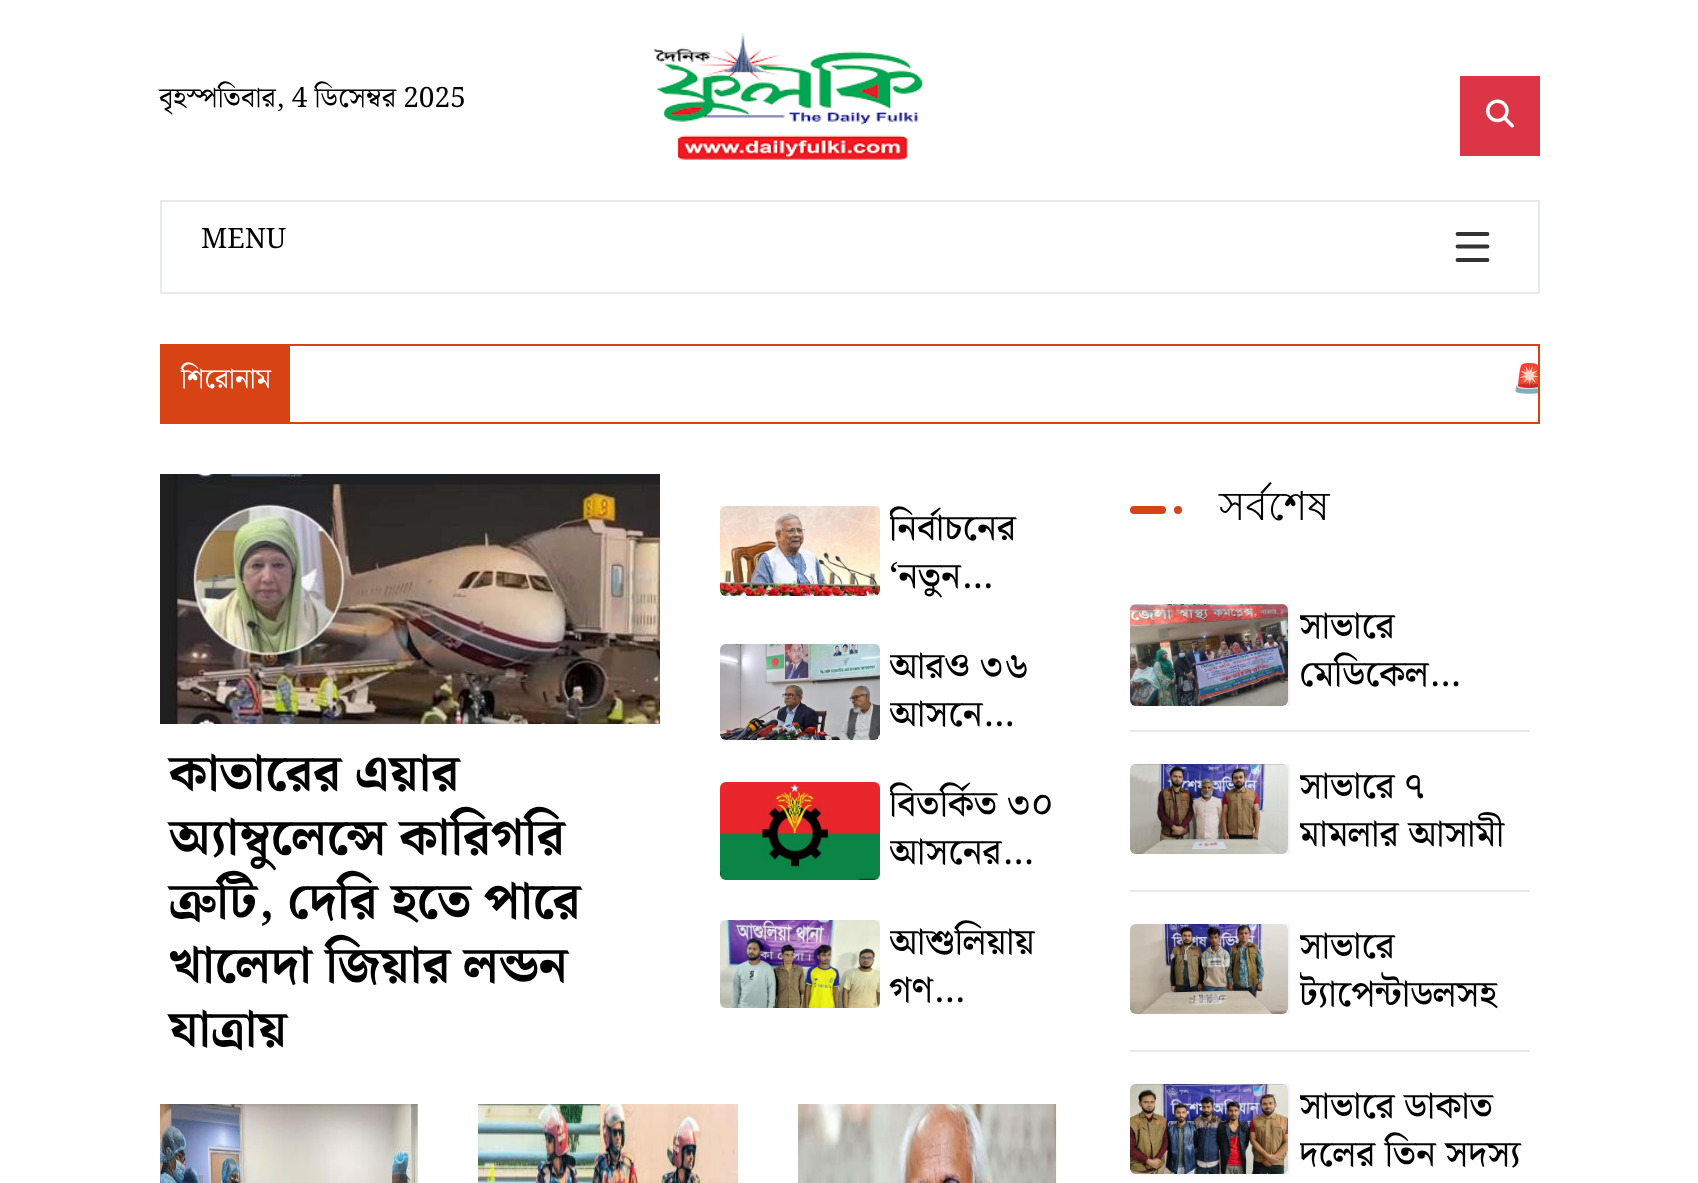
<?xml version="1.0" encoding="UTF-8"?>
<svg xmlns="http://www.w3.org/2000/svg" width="1698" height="1183">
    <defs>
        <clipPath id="clip1"><rect x="162" y="346" width="1376" height="92"/></clipPath>
        <clipPath id="clip2"><rect x="890" y="506" width="170" height="96"/></clipPath>
        <clipPath id="clip3"><rect x="890" y="644" width="170" height="96"/></clipPath>
        <clipPath id="clip4"><rect x="890" y="782" width="170" height="96"/></clipPath>
        <clipPath id="clip5"><rect x="890" y="920" width="170" height="96"/></clipPath>
        <clipPath id="clip6"><rect x="1300" y="604" width="230" height="96"/></clipPath>
        <clipPath id="clip7"><rect x="1300" y="764" width="230" height="96"/></clipPath>
        <clipPath id="clip8"><rect x="1300" y="924" width="230" height="96"/></clipPath>
        <clipPath id="clip9"><rect x="1300" y="1084" width="230" height="96"/></clipPath>
    </defs>
    <rect width="100%" height="100%" fill="#FFFFFF"/>
    <text x="159" y="107" font-family="Noto Serif Bengali" font-size="28" fill="#000000">বৃহস্পতিবার, 4 ডিসেম্বর 2025</text>
    <image x="653" y="33" width="271" height="127" href="img_01.png"/>
    <rect x="1460" y="76" width="80" height="80" fill="#DC3545"/>
    <image x="1486" y="99" width="28" height="29" href="img_02.png"/>
    <rect x="161" y="201" width="1378" height="92" fill="none" stroke="#E5EAEE" stroke-width="2"/>
    <text x="201" y="248" font-family="Noto Serif Bengali" font-size="28" fill="#000000">MENU</text>
    <path d="M 1457.5 234 H 1487.5 M 1457.5 246.5 H 1487.5 M 1457.5 260 H 1487.5" fill="none" stroke="#333333" stroke-width="3.8" stroke-linecap="round"/>
    <rect x="161" y="345" width="1378" height="78" fill="none" stroke="#D84315" stroke-width="2"/>
    <rect x="162" y="346" width="128" height="76" fill="#D84315"/>
    <text x="181" y="388" font-family="Noto Serif Bengali" font-size="28" fill="#FFFFFF">শিরোনাম</text>
    <g clip-path="url(#clip1)">
        <text x="1512" y="388" font-family="Noto Color Emoji" font-size="28" fill="#000000">🚨</text>
    </g>
    <image x="160" y="474" width="500" height="250" href="img_03.png"/>
    <text font-family="Noto Serif Bengali" font-size="51.25" font-weight="700" fill="#000000">
        <tspan x="169" y="790">কাতারের এয়ার</tspan>
        <tspan x="169" y="854">অ্যাম্বুলেন্সে কারিগরি</tspan>
        <tspan x="169" y="918">ত্রুটি, দেরি হতে পারে</tspan>
        <tspan x="169" y="982">খালেদা জিয়ার লন্ডন</tspan>
        <tspan x="169" y="1046">যাত্রায়</tspan>
    </text>
    <rect x="720" y="506" width="160" height="90" fill="#F4F4F4"/>
    <image x="720" y="506" width="160" height="90" href="img_04.png"/>
    <g clip-path="url(#clip2)">
        <text x="889" y="540" font-family="Noto Serif Bengali" font-size="36.75" font-weight="500" fill="#000000">নির্বাচনের</text>
    </g>
    <text x="889" y="588" font-family="Noto Serif Bengali" font-size="36.75" font-weight="500" fill="#000000">‘নতুন…</text>
    <rect x="720" y="644" width="160" height="96" fill="#F4F4F4"/>
    <image x="720" y="644" width="160" height="96" href="img_05.png"/>
    <g clip-path="url(#clip3)">
        <text font-family="Noto Serif Bengali" font-size="36.75" font-weight="500" fill="#000000">
            <tspan x="889" y="678">আরও ৩৬</tspan>
            <tspan x="889" y="726">আসনে…</tspan>
        </text>
    </g>
    <rect x="720" y="782" width="160" height="98" fill="#F4F4F4"/>
    <image x="720" y="782" width="160" height="98" href="img_06.png"/>
    <g clip-path="url(#clip4)">
        <text font-family="Noto Serif Bengali" font-size="36.75" font-weight="500" fill="#000000">
            <tspan x="889" y="816">বিতর্কিত ৩০</tspan>
            <tspan x="889" y="864">আসনের…</tspan>
        </text>
    </g>
    <rect x="720" y="920" width="160" height="88" fill="#F4F4F4"/>
    <image x="720" y="920" width="160" height="88" href="img_07.png"/>
    <g clip-path="url(#clip5)">
        <text x="889" y="954" font-family="Noto Serif Bengali" font-size="36.75" font-weight="500" fill="#000000">আশুলিয়ায়</text>
    </g>
    <text x="889" y="1002" font-family="Noto Serif Bengali" font-size="36.75" font-weight="500" fill="#000000">গণ…</text>
    <image x="160" y="1104" width="258" height="79" href="img_08.png"/>
    <image x="478" y="1104" width="260" height="79" href="img_09.png"/>
    <image x="798" y="1104" width="260" height="79" href="img_10.png"/>
    <rect x="1130" y="506" width="36" height="8" rx="4" fill="#D84315"/>
    <circle cx="1178" cy="510" r="4" fill="#D84315"/>
    <text x="1219" y="520" font-family="Lohit Bengali" font-size="40" fill="#000000">সর্বশেষ</text>
    <rect x="1130" y="730" width="400" height="2" fill="#E5EAEE"/>
    <rect x="1130" y="604" width="160" height="102" fill="#F4F4F4"/>
    <image x="1130" y="604" width="158" height="102" href="img_11.png"/>
    <g clip-path="url(#clip6)">
        <text font-family="Noto Serif Bengali" font-size="36.75" font-weight="500" fill="#000000">
            <tspan x="1299" y="638">সাভারে</tspan>
            <tspan x="1299" y="686">মেডিকেল…</tspan>
        </text>
    </g>
    <rect x="1130" y="890" width="400" height="2" fill="#E5EAEE"/>
    <rect x="1130" y="764" width="160" height="90" fill="#F4F4F4"/>
    <image x="1130" y="764" width="158" height="90" href="img_12.png"/>
    <g clip-path="url(#clip7)">
        <text font-family="Noto Serif Bengali" font-size="36.75" font-weight="500" fill="#000000">
            <tspan x="1299" y="798">সাভারে ৭</tspan>
            <tspan x="1299" y="846">মামলার আসামী</tspan>
        </text>
    </g>
    <rect x="1130" y="1050" width="400" height="2" fill="#E5EAEE"/>
    <rect x="1130" y="924" width="160" height="90" fill="#F4F4F4"/>
    <image x="1130" y="924" width="158" height="90" href="img_13.png"/>
    <g clip-path="url(#clip8)">
        <text font-family="Noto Serif Bengali" font-size="36.75" font-weight="500" fill="#000000">
            <tspan x="1299" y="958">সাভারে</tspan>
            <tspan x="1299" y="1006">ট্যাপেন্টাডলসহ</tspan>
        </text>
    </g>
    <rect x="1130" y="1084" width="160" height="90" fill="#F4F4F4"/>
    <image x="1130" y="1084" width="158" height="90" href="img_14.png"/>
    <g clip-path="url(#clip9)">
        <text font-family="Noto Serif Bengali" font-size="36.75" font-weight="500" fill="#000000">
            <tspan x="1299" y="1118">সাভারে ডাকাত</tspan>
            <tspan x="1299" y="1166">দলের তিন সদস্য</tspan>
        </text>
    </g>
</svg>
